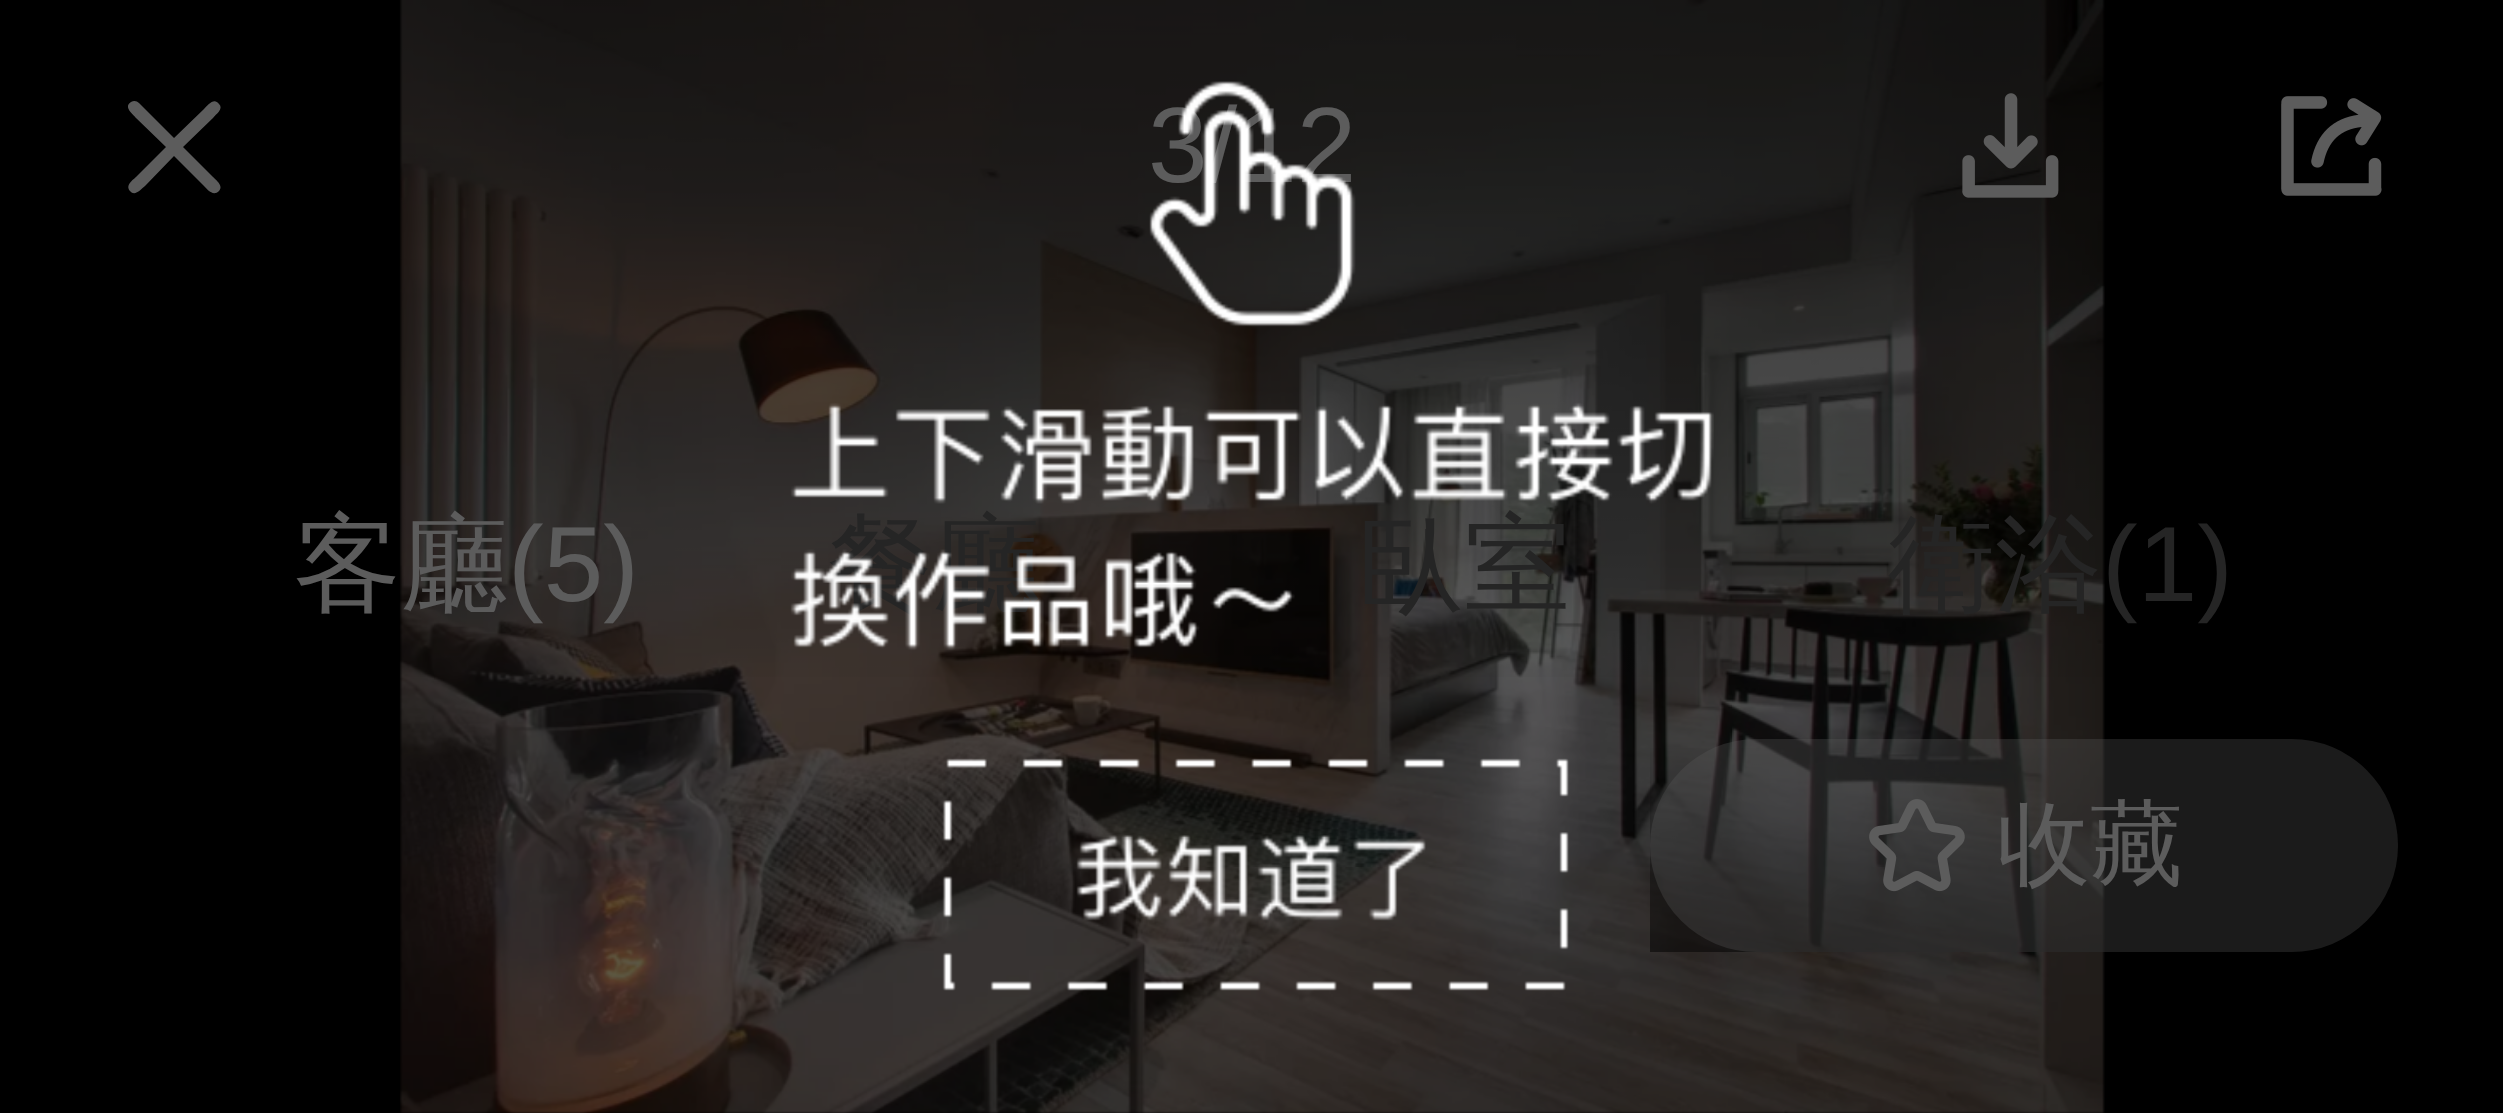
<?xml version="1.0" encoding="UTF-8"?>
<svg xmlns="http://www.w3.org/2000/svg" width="2503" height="1113">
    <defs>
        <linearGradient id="g1" gradientUnits="userSpaceOnUse" x1="1252" y1="0" x2="1252" y2="707"><stop offset="0" stop-color="#000000" stop-opacity="0.5"/><stop offset="1" stop-color="#000000" stop-opacity="0"/></linearGradient>
        <linearGradient id="g2" gradientUnits="userSpaceOnUse" x1="2024" y1="952" x2="2024" y2="739"><stop offset="0" stop-color="#000000" stop-opacity="0.5"/><stop offset="1" stop-color="#000000" stop-opacity="0"/></linearGradient>
    </defs>
    <rect width="100%" height="100%" fill="#000000"/>
    <image x="399" y="0" width="1706" height="1113" href="img_02.png"/>
    <rect x="400" y="0" width="1705" height="677" fill="url(#g1)"/>
    <path d="M 139 103 L 174 138 L 204 109 C 208 105 214 97 219 104 C 224 109 216 114 213 118 L 183 147 L 213 177 C 216 180 224 186 219 191 C 213 197 207 189 204 186 L 174 156 L 145 186 C 141 189 135 197 130 191 C 125 185 133 180 136 177 L 166 147 L 136 118 C 133 114 123 107 131 102 C 134 100 137 101 139 103 Z" fill="#FFFFFF"/>
    <text x="1148" y="182" font-family="Liberation Sans" font-size="107" fill="#FFFFFF">3/12</text>
    <image x="1962" y="93" width="97" height="105" href="img_03.png"/>
    <image x="2281" y="96" width="101" height="100" href="img_04.png"/>
    <text x="294" y="601" font-family="WenQuanYi Zen Hei" font-size="107" font-weight="500" fill="#FFFFFF">客廳</text>
    <text x="508" y="601" font-family="Liberation Sans" font-size="107" fill="#FFFFFF">(5)</text>
    <text x="826" y="601" font-family="WenQuanYi Zen Hei" font-size="107" font-weight="500" fill="#666666">餐廳</text>
    <text x="1357" y="601" font-family="WenQuanYi Zen Hei" font-size="107" font-weight="500" fill="#666666">臥室</text>
    <text x="1888" y="601" font-family="WenQuanYi Zen Hei" font-size="107" font-weight="500" fill="#666666">衛浴</text>
    <text x="2102" y="601" font-family="Liberation Sans" font-size="107" fill="#666666">(1)</text>
    <rect x="1650" y="748" width="455" height="204" fill="url(#g2)"/>
    <rect x="1650" y="739" width="748" height="213" rx="106.5" fill="#FFFFFF" fill-opacity="0.3"/>
    <image x="1869" y="799" width="96" height="93" href="img_05.png"/>
    <text x="1997" y="876" font-family="WenQuanYi Zen Hei" font-size="93" font-weight="500" fill="#FFFFFF">收藏</text>
    <rect x="128" y="0" width="2270" height="1113" fill="#000000" fill-opacity="0.64"/>
    <image x="790" y="81" width="924" height="910" href="img_01.png"/>
</svg>
